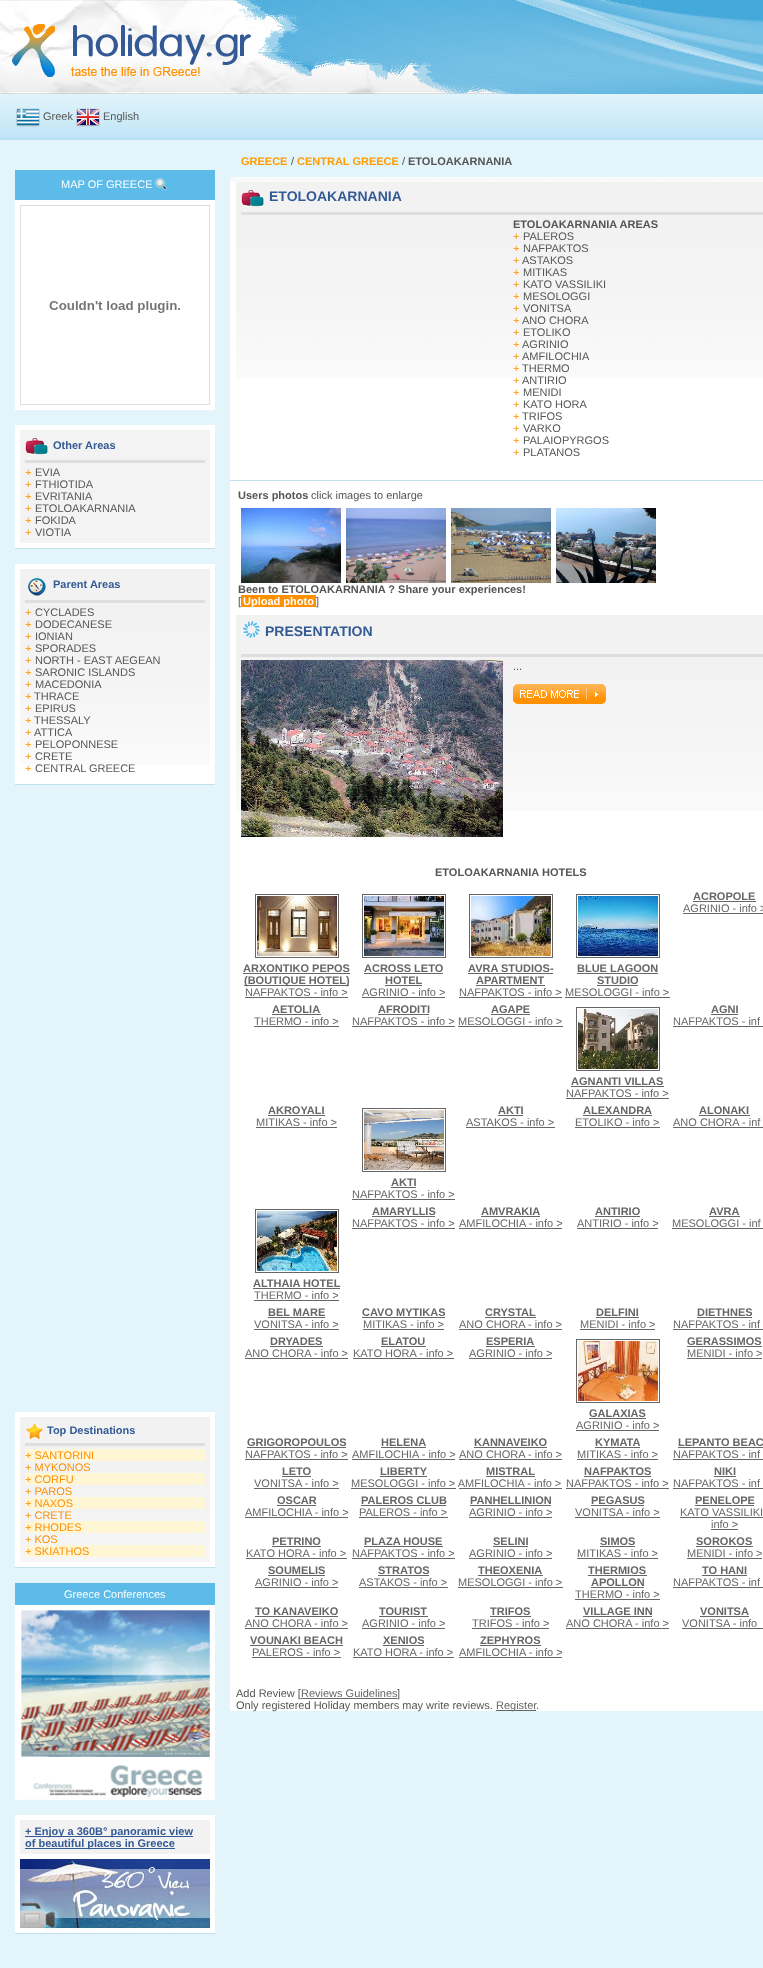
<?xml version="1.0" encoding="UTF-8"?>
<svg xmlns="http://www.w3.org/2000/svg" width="763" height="1968">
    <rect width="100%" height="100%" fill="#FFFFFF"/>
    <image x="256" y="0" width="507" height="94" href="img_01.png"/>
    <image x="0" y="0" width="256" height="94" href="img_02.png"/>
    <image x="0" y="94" width="16" height="46" href="img_03.png"/>
    <image x="16" y="94" width="142" height="46" href="img_04.png"/>
    <image x="16" y="108" width="24" height="19" href="img_05.png"/>
    <text x="43" y="120" font-family="Liberation Sans" font-size="11" fill="#555555">Greek</text>
    <image x="76" y="108" width="24" height="19" href="img_06.png"/>
    <text x="103" y="120" font-family="Liberation Sans" font-size="11" fill="#555555">English</text>
    <image x="158" y="94" width="456" height="46" href="img_07.png"/>
    <image x="614" y="94" width="149" height="46" href="img_08.png"/>
    <rect x="0" y="140" width="763" height="15" fill="#E4F4FB"/>
    <rect x="0" y="155" width="763" height="1813" fill="#E4F4FB"/>
    <rect x="15" y="170" width="200" height="30" fill="#5DBBE9"/>
    <text x="61" y="188" font-family="Liberation Sans" font-size="11" fill="#FFFFFF">MAP OF GREECE</text>
    <image x="155" y="178" width="12" height="12" href="img_09.png"/>
    <rect x="15" y="200" width="200" height="210" fill="#FFFFFF"/>
    <rect x="20.5" y="205.5" width="189" height="199" fill="none" stroke="#DEDEDE"/>
    <image x="49" y="301" width="131" height="12" href="img_10.png"/>
    <rect x="15" y="425" width="200" height="123" fill="#FFFFFF"/>
    <rect x="20" y="430" width="190" height="113" fill="#F3F3F3"/>
    <image x="25" y="438" width="23" height="17" href="img_11.png"/>
    <text x="53" y="449" font-family="Liberation Sans" font-size="11" font-weight="700" fill="#335A95">Other Areas</text>
    <rect x="25" y="460" width="180" height="3" fill="#DEDEDE"/>
    <text x="25" y="476" font-family="Liberation Sans" font-size="11" fill="#FF9000">+</text>
    <text x="35" y="476" font-family="Liberation Sans" font-size="11" fill="#555555">EVIA</text>
    <text x="25" y="488" font-family="Liberation Sans" font-size="11" fill="#FF9000">+</text>
    <text x="35" y="488" font-family="Liberation Sans" font-size="11" fill="#555555">FTHIOTIDA</text>
    <text x="25" y="500" font-family="Liberation Sans" font-size="11" fill="#FF9000">+</text>
    <text x="35" y="500" font-family="Liberation Sans" font-size="11" fill="#555555">EVRITANIA</text>
    <text x="25" y="512" font-family="Liberation Sans" font-size="11" fill="#FF9000">+</text>
    <text x="35" y="512" font-family="Liberation Sans" font-size="11" fill="#555555">ETOLOAKARNANIA</text>
    <text x="25" y="524" font-family="Liberation Sans" font-size="11" fill="#FF9000">+</text>
    <text x="35" y="524" font-family="Liberation Sans" font-size="11" fill="#555555">FOKIDA</text>
    <text x="25" y="536" font-family="Liberation Sans" font-size="11" fill="#FF9000">+</text>
    <text x="35" y="536" font-family="Liberation Sans" font-size="11" fill="#555555">VIOTIA</text>
    <rect x="15" y="548" width="200" height="1" fill="#C1E1EF"/>
    <rect x="15" y="564" width="200" height="220" fill="#FFFFFF"/>
    <image x="20" y="569" width="190" height="196" href="img_12.png"/>
    <image x="28" y="578" width="18" height="18" href="img_13.png"/>
    <text x="53" y="588" font-family="Liberation Sans" font-size="11" font-weight="700" fill="#335A95">Parent Areas</text>
    <rect x="25" y="600" width="180" height="3" fill="#DEDEDE"/>
    <text x="25" y="616" font-family="Liberation Sans" font-size="11" fill="#FF9000">+</text>
    <text x="35" y="616" font-family="Liberation Sans" font-size="11" fill="#555555">CYCLADES</text>
    <text x="25" y="628" font-family="Liberation Sans" font-size="11" fill="#FF9000">+</text>
    <text x="35" y="628" font-family="Liberation Sans" font-size="11" fill="#555555">DODECANESE</text>
    <text x="25" y="640" font-family="Liberation Sans" font-size="11" fill="#FF9000">+</text>
    <text x="35" y="640" font-family="Liberation Sans" font-size="11" fill="#555555">IONIAN</text>
    <text x="25" y="652" font-family="Liberation Sans" font-size="11" fill="#FF9000">+</text>
    <text x="35" y="652" font-family="Liberation Sans" font-size="11" fill="#555555">SPORADES</text>
    <text x="25" y="664" font-family="Liberation Sans" font-size="11" fill="#FF9000">+</text>
    <text x="35" y="664" font-family="Liberation Sans" font-size="11" fill="#555555">NORTH - EAST AEGEAN</text>
    <text x="25" y="676" font-family="Liberation Sans" font-size="11" fill="#FF9000">+</text>
    <text x="35" y="676" font-family="Liberation Sans" font-size="11" fill="#555555">SARONIC ISLANDS</text>
    <text x="25" y="688" font-family="Liberation Sans" font-size="11" fill="#FF9000">+</text>
    <text x="35" y="688" font-family="Liberation Sans" font-size="11" fill="#555555">MACEDONIA</text>
    <text x="25" y="700" font-family="Liberation Sans" font-size="11" fill="#FF9000">+</text>
    <text x="34" y="700" font-family="Liberation Sans" font-size="11" fill="#555555">THRACE</text>
    <text x="25" y="712" font-family="Liberation Sans" font-size="11" fill="#FF9000">+</text>
    <text x="35" y="712" font-family="Liberation Sans" font-size="11" fill="#555555">EPIRUS</text>
    <text x="25" y="724" font-family="Liberation Sans" font-size="11" fill="#FF9000">+</text>
    <text x="34" y="724" font-family="Liberation Sans" font-size="11" fill="#555555">THESSALY</text>
    <text x="25" y="736" font-family="Liberation Sans" font-size="11" fill="#FF9000">+</text>
    <text x="34" y="736" font-family="Liberation Sans" font-size="11" fill="#555555">ATTICA</text>
    <text x="25" y="748" font-family="Liberation Sans" font-size="11" fill="#FF9000">+</text>
    <text x="35" y="748" font-family="Liberation Sans" font-size="11" fill="#555555">PELOPONNESE</text>
    <text x="25" y="760" font-family="Liberation Sans" font-size="11" fill="#FF9000">+</text>
    <text x="35" y="760" font-family="Liberation Sans" font-size="11" fill="#555555">CRETE</text>
    <text x="25" y="772" font-family="Liberation Sans" font-size="11" fill="#FF9000">+</text>
    <text x="35" y="772" font-family="Liberation Sans" font-size="11" fill="#555555">CENTRAL GREECE</text>
    <rect x="15" y="784" width="200" height="1" fill="#C1E1EF"/>
    <rect x="15" y="1412" width="200" height="155" fill="#FFFFFF"/>
    <image x="20" y="1417" width="190" height="145" href="img_14.png"/>
    <image x="26" y="1423" width="17" height="16" href="img_15.png"/>
    <text x="47" y="1434" font-family="Liberation Sans" font-size="11" font-weight="700" fill="#335A95">Top Destinations</text>
    <rect x="25" y="1443" width="180" height="3" fill="#DEDEDE"/>
    <rect x="25" y="1449" width="180" height="12" fill="#FFF6D5"/>
    <text font-family="Liberation Sans" font-size="11" fill="#FF9000">
        <tspan x="25" y="1459">+ SANTORINI</tspan>
        <tspan x="25" y="1471">+ MYKONOS</tspan>
    </text>
    <rect x="25" y="1473" width="180" height="12" fill="#FFF6D5"/>
    <text font-family="Liberation Sans" font-size="11" fill="#FF9000">
        <tspan x="25" y="1483">+ CORFU</tspan>
        <tspan x="25" y="1495">+ PAROS</tspan>
    </text>
    <rect x="25" y="1497" width="180" height="12" fill="#FFF6D5"/>
    <text font-family="Liberation Sans" font-size="11" fill="#FF9000">
        <tspan x="25" y="1507">+ NAXOS</tspan>
        <tspan x="25" y="1519">+ CRETE</tspan>
    </text>
    <rect x="25" y="1521" width="180" height="12" fill="#FFF6D5"/>
    <text font-family="Liberation Sans" font-size="11" fill="#FF9000">
        <tspan x="25" y="1531">+ RHODES</tspan>
        <tspan x="25" y="1543">+ KOS</tspan>
    </text>
    <rect x="25" y="1545" width="180" height="12" fill="#FFF6D5"/>
    <text x="25" y="1555" font-family="Liberation Sans" font-size="11" fill="#FF9000">+ SKIATHOS</text>
    <rect x="15" y="1567" width="200" height="1" fill="#C1E1EF"/>
    <rect x="15" y="1583" width="200" height="22" fill="#5DBBE9"/>
    <text x="64" y="1598" font-family="Liberation Sans" font-size="11" fill="#FFFFFF">Greece Conferences</text>
    <image x="15" y="1605" width="200" height="195" href="img_16.png"/>
    <rect x="15" y="1815" width="200" height="118" fill="#FFFFFF"/>
    <rect x="20" y="1820" width="190" height="34" fill="#F2F2F2"/>
    <rect x="25" y="1836" width="168" height="1" fill="#335A95"/>
    <text x="25" y="1835" font-family="Liberation Sans" font-size="11" font-weight="700" fill="#335A95">+ Enjoy a 360Β° panoramic view</text>
    <rect x="25" y="1848" width="150" height="1" fill="#335A95"/>
    <text x="25" y="1847" font-family="Liberation Sans" font-size="11" font-weight="700" fill="#335A95">of beautiful places in Greece</text>
    <image x="20" y="1859" width="190" height="72" href="img_17.png"/>
    <rect x="15" y="1933" width="200" height="1" fill="#C1E1EF"/>
    <text x="241" y="165" font-family="Liberation Sans" font-size="11" font-weight="700" fill="#FF9C00">GREECE</text>
    <text x="291" y="165" font-family="Liberation Sans" font-size="11" fill="#555555">/</text>
    <text x="297" y="165" font-family="Liberation Sans" font-size="11" font-weight="700" fill="#FF9C00">CENTRAL GREECE</text>
    <text x="402" y="165" font-family="Liberation Sans" font-size="11" fill="#555555">/</text>
    <text x="408" y="165" font-family="Liberation Sans" font-size="11" font-weight="700" fill="#555555">ETOLOAKARNANIA</text>
    <rect x="230" y="177" width="533" height="5" fill="#F9F9F9"/>
    <rect x="230" y="182" width="533" height="298" fill="#FFFFFF"/>
    <image x="236" y="182" width="527" height="196" href="img_18.png"/>
    <image x="241" y="190" width="23" height="17" href="img_19.png"/>
    <text x="269" y="201" font-family="Liberation Sans" font-size="14" font-weight="700" fill="#335A95">ETOLOAKARNANIA</text>
    <rect x="241" y="212" width="522" height="3" fill="#DEDEDE"/>
    <text x="513" y="228" font-family="Liberation Sans" font-size="11" font-weight="700" fill="#555555">ETOLOAKARNANIA AREAS</text>
    <text x="513" y="240" font-family="Liberation Sans" font-size="11" fill="#FF9000">+</text>
    <text x="523" y="240" font-family="Liberation Sans" font-size="11" fill="#555555">PALEROS</text>
    <text x="513" y="252" font-family="Liberation Sans" font-size="11" fill="#FF9000">+</text>
    <text x="523" y="252" font-family="Liberation Sans" font-size="11" fill="#555555">NAFPAKTOS</text>
    <text x="513" y="264" font-family="Liberation Sans" font-size="11" fill="#FF9000">+</text>
    <text x="522" y="264" font-family="Liberation Sans" font-size="11" fill="#555555">ASTAKOS</text>
    <text x="513" y="276" font-family="Liberation Sans" font-size="11" fill="#FF9000">+</text>
    <text x="523" y="276" font-family="Liberation Sans" font-size="11" fill="#555555">MITIKAS</text>
    <text x="513" y="288" font-family="Liberation Sans" font-size="11" fill="#FF9000">+</text>
    <text x="523" y="288" font-family="Liberation Sans" font-size="11" fill="#555555">KATO VASSILIKI</text>
    <text x="513" y="300" font-family="Liberation Sans" font-size="11" fill="#FF9000">+</text>
    <text x="523" y="300" font-family="Liberation Sans" font-size="11" fill="#555555">MESOLOGGI</text>
    <text x="513" y="312" font-family="Liberation Sans" font-size="11" fill="#FF9000">+</text>
    <text x="523" y="312" font-family="Liberation Sans" font-size="11" fill="#555555">VONITSA</text>
    <text x="513" y="324" font-family="Liberation Sans" font-size="11" fill="#FF9000">+</text>
    <text x="522" y="324" font-family="Liberation Sans" font-size="11" fill="#555555">ANO CHORA</text>
    <text x="513" y="336" font-family="Liberation Sans" font-size="11" fill="#FF9000">+</text>
    <text x="523" y="336" font-family="Liberation Sans" font-size="11" fill="#555555">ETOLIKO</text>
    <text x="513" y="348" font-family="Liberation Sans" font-size="11" fill="#FF9000">+</text>
    <text x="522" y="348" font-family="Liberation Sans" font-size="11" fill="#555555">AGRINIO</text>
    <text x="513" y="360" font-family="Liberation Sans" font-size="11" fill="#FF9000">+</text>
    <text x="522" y="360" font-family="Liberation Sans" font-size="11" fill="#555555">AMFILOCHIA</text>
    <text x="513" y="372" font-family="Liberation Sans" font-size="11" fill="#FF9000">+</text>
    <text x="522" y="372" font-family="Liberation Sans" font-size="11" fill="#555555">THERMO</text>
    <text x="513" y="384" font-family="Liberation Sans" font-size="11" fill="#FF9000">+</text>
    <text x="522" y="384" font-family="Liberation Sans" font-size="11" fill="#555555">ANTIRIO</text>
    <text x="513" y="396" font-family="Liberation Sans" font-size="11" fill="#FF9000">+</text>
    <text x="523" y="396" font-family="Liberation Sans" font-size="11" fill="#555555">MENIDI</text>
    <text x="513" y="408" font-family="Liberation Sans" font-size="11" fill="#FF9000">+</text>
    <text x="523" y="408" font-family="Liberation Sans" font-size="11" fill="#555555">KATO HORA</text>
    <text x="513" y="420" font-family="Liberation Sans" font-size="11" fill="#FF9000">+</text>
    <text x="522" y="420" font-family="Liberation Sans" font-size="11" fill="#555555">TRIFOS</text>
    <text x="513" y="432" font-family="Liberation Sans" font-size="11" fill="#FF9000">+</text>
    <text x="523" y="432" font-family="Liberation Sans" font-size="11" fill="#555555">VARKO</text>
    <text x="513" y="444" font-family="Liberation Sans" font-size="11" fill="#FF9000">+</text>
    <text x="523" y="444" font-family="Liberation Sans" font-size="11" fill="#555555">PALAIOPYRGOS</text>
    <text x="513" y="456" font-family="Liberation Sans" font-size="11" fill="#FF9000">+</text>
    <text x="523" y="456" font-family="Liberation Sans" font-size="11" fill="#555555">PLATANOS</text>
    <rect x="230" y="480" width="533" height="1" fill="#C1E1EF"/>
    <rect x="230" y="481" width="533" height="1230" fill="#FFFFFF"/>
    <text x="238" y="499" font-family="Liberation Sans" font-size="11" font-weight="700" fill="#555555">Users photos</text>
    <text x="311" y="499" font-family="Liberation Sans" font-size="11" fill="#555555">click images to enlarge</text>
    <image x="241" y="508" width="100" height="75" href="img_20.png"/>
    <image x="346" y="508" width="100" height="75" href="img_21.png"/>
    <image x="451" y="508" width="100" height="75" href="img_22.png"/>
    <image x="556" y="508" width="100" height="75" href="img_23.png"/>
    <text x="238" y="593" font-family="Liberation Sans" font-size="11" font-weight="700" fill="#555555">Been to ETOLOAKARNANIA ? Share your experiences!</text>
    <text x="238" y="605" font-family="Liberation Sans" font-size="11" fill="#555555">[</text>
    <rect x="241" y="595" width="75" height="12" fill="#FF9000"/>
    <text x="243" y="605" font-family="Liberation Sans" font-size="11" font-weight="700" fill="#FFFFFF">Upload photo</text>
    <text x="316" y="605" font-family="Liberation Sans" font-size="11" fill="#555555">]</text>
    <image x="236" y="615" width="527" height="196" href="img_18.png"/>
    <image x="243" y="621" width="17" height="17" href="img_24.png"/>
    <text x="265" y="636" font-family="Liberation Sans" font-size="14" font-weight="700" fill="#335A95">PRESENTATION</text>
    <rect x="241" y="654" width="522" height="3" fill="#DEDEDE"/>
    <image x="241" y="660" width="262" height="177" href="img_25.png"/>
    <text x="513" y="670" font-family="Liberation Sans" font-size="11" fill="#555555">...</text>
    <image x="513" y="684" width="93" height="20" href="img_26.png"/>
    <text x="435" y="876" font-family="Liberation Sans" font-size="11" font-weight="700" fill="#555555">ETOLOAKARNANIA HOTELS</text>
    <text x="693" y="900" font-family="Liberation Sans" font-size="11" font-weight="700" fill="#666666">ACROPOLE</text>
    <rect x="693" y="901" width="63" height="1" fill="#666666"/>
    <text x="683" y="912" font-family="Liberation Sans" font-size="11" fill="#666666">AGRINIO - info &gt;</text>
    <rect x="683" y="913" width="80" height="1" fill="#666666"/>
    <rect x="255.5" y="894.5" width="83" height="63" fill="none" stroke="#666666"/>
    <image x="257" y="896" width="80" height="60" href="img_27.png"/>
    <text x="243" y="972" font-family="Liberation Sans" font-size="11" font-weight="700" fill="#666666">ARXONTIKO PEPOS</text>
    <rect x="243" y="973" width="107" height="1" fill="#666666"/>
    <rect x="244" y="985" width="105" height="1" fill="#666666"/>
    <text x="244" y="984" font-family="Liberation Sans" font-size="11" font-weight="700" fill="#666666">(BOUTIQUE HOTEL)</text>
    <text x="245" y="996" font-family="Liberation Sans" font-size="11" fill="#666666">NAFPAKTOS - info &gt;</text>
    <rect x="245" y="997" width="103" height="1" fill="#666666"/>
    <rect x="362.5" y="894.5" width="83" height="63" fill="none" stroke="#666666"/>
    <image x="364" y="896" width="80" height="60" href="img_28.png"/>
    <text x="364" y="972" font-family="Liberation Sans" font-size="11" font-weight="700" fill="#666666">ACROSS LETO</text>
    <rect x="364" y="973" width="79" height="1" fill="#666666"/>
    <text x="385" y="984" font-family="Liberation Sans" font-size="11" font-weight="700" fill="#666666">HOTEL</text>
    <rect x="385" y="985" width="37" height="1" fill="#666666"/>
    <text x="362" y="996" font-family="Liberation Sans" font-size="11" fill="#666666">AGRINIO - info &gt;</text>
    <rect x="362" y="997" width="83" height="1" fill="#666666"/>
    <rect x="469.5" y="894.5" width="83" height="63" fill="none" stroke="#666666"/>
    <image x="471" y="896" width="80" height="60" href="img_29.png"/>
    <text x="468" y="972" font-family="Liberation Sans" font-size="11" font-weight="700" fill="#666666">AVRA STUDIOS-</text>
    <rect x="468" y="973" width="85" height="1" fill="#666666"/>
    <text x="476" y="984" font-family="Liberation Sans" font-size="11" font-weight="700" fill="#666666">APARTMENT</text>
    <rect x="476" y="985" width="69" height="1" fill="#666666"/>
    <text x="459" y="996" font-family="Liberation Sans" font-size="11" fill="#666666">NAFPAKTOS - info &gt;</text>
    <rect x="459" y="997" width="103" height="1" fill="#666666"/>
    <rect x="576.5" y="894.5" width="83" height="63" fill="none" stroke="#666666"/>
    <image x="578" y="896" width="80" height="60" href="img_30.png"/>
    <text x="577" y="972" font-family="Liberation Sans" font-size="11" font-weight="700" fill="#666666">BLUE LAGOON</text>
    <rect x="577" y="973" width="81" height="1" fill="#666666"/>
    <text x="597" y="984" font-family="Liberation Sans" font-size="11" font-weight="700" fill="#666666">STUDIO</text>
    <rect x="597" y="985" width="41" height="1" fill="#666666"/>
    <text x="565" y="996" font-family="Liberation Sans" font-size="11" fill="#666666">MESOLOGGI - info &gt;</text>
    <rect x="565" y="997" width="105" height="1" fill="#666666"/>
    <text x="272" y="1013" font-family="Liberation Sans" font-size="11" font-weight="700" fill="#666666">AETOLIA</text>
    <rect x="272" y="1014" width="49" height="1" fill="#666666"/>
    <text x="254" y="1025" font-family="Liberation Sans" font-size="11" fill="#666666">THERMO - info &gt;</text>
    <rect x="254" y="1026" width="85" height="1" fill="#666666"/>
    <text x="378" y="1013" font-family="Liberation Sans" font-size="11" font-weight="700" fill="#666666">AFRODITI</text>
    <rect x="378" y="1014" width="51" height="1" fill="#666666"/>
    <text x="352" y="1025" font-family="Liberation Sans" font-size="11" fill="#666666">NAFPAKTOS - info &gt;</text>
    <rect x="352" y="1026" width="103" height="1" fill="#666666"/>
    <text x="491" y="1013" font-family="Liberation Sans" font-size="11" font-weight="700" fill="#666666">AGAPE</text>
    <rect x="491" y="1014" width="39" height="1" fill="#666666"/>
    <text x="458" y="1025" font-family="Liberation Sans" font-size="11" fill="#666666">MESOLOGGI - info &gt;</text>
    <rect x="458" y="1026" width="105" height="1" fill="#666666"/>
    <text x="711" y="1013" font-family="Liberation Sans" font-size="11" font-weight="700" fill="#666666">AGNI</text>
    <rect x="711" y="1014" width="27" height="1" fill="#666666"/>
    <text x="673" y="1025" font-family="Liberation Sans" font-size="11" fill="#666666">NAFPAKTOS - inf</text>
    <rect x="673" y="1026" width="90" height="1" fill="#666666"/>
    <rect x="576.5" y="1007.5" width="83" height="63" fill="none" stroke="#666666"/>
    <image x="578" y="1009" width="80" height="60" href="img_31.png"/>
    <text x="571" y="1085" font-family="Liberation Sans" font-size="11" font-weight="700" fill="#666666">AGNANTI VILLAS</text>
    <rect x="571" y="1086" width="93" height="1" fill="#666666"/>
    <text x="566" y="1097" font-family="Liberation Sans" font-size="11" fill="#666666">NAFPAKTOS - info &gt;</text>
    <rect x="566" y="1098" width="103" height="1" fill="#666666"/>
    <text x="268" y="1114" font-family="Liberation Sans" font-size="11" font-weight="700" fill="#666666">AKROYALI</text>
    <rect x="268" y="1115" width="57" height="1" fill="#666666"/>
    <text x="256" y="1126" font-family="Liberation Sans" font-size="11" fill="#666666">MITIKAS - info &gt;</text>
    <rect x="256" y="1127" width="81" height="1" fill="#666666"/>
    <text x="498" y="1114" font-family="Liberation Sans" font-size="11" font-weight="700" fill="#666666">AKTI</text>
    <rect x="498" y="1115" width="25" height="1" fill="#666666"/>
    <text x="466" y="1126" font-family="Liberation Sans" font-size="11" fill="#666666">ASTAKOS - info &gt;</text>
    <rect x="466" y="1127" width="89" height="1" fill="#666666"/>
    <text x="583" y="1114" font-family="Liberation Sans" font-size="11" font-weight="700" fill="#666666">ALEXANDRA</text>
    <rect x="583" y="1115" width="69" height="1" fill="#666666"/>
    <text x="575" y="1126" font-family="Liberation Sans" font-size="11" fill="#666666">ETOLIKO - info &gt;</text>
    <rect x="575" y="1127" width="85" height="1" fill="#666666"/>
    <text x="699" y="1114" font-family="Liberation Sans" font-size="11" font-weight="700" fill="#666666">ALONAKI</text>
    <rect x="699" y="1115" width="51" height="1" fill="#666666"/>
    <text x="673" y="1126" font-family="Liberation Sans" font-size="11" fill="#666666">ANO CHORA - inf</text>
    <rect x="673" y="1127" width="90" height="1" fill="#666666"/>
    <rect x="362.5" y="1108.5" width="83" height="63" fill="none" stroke="#666666"/>
    <image x="364" y="1110" width="80" height="60" href="img_32.png"/>
    <text x="391" y="1186" font-family="Liberation Sans" font-size="11" font-weight="700" fill="#666666">AKTI</text>
    <rect x="391" y="1187" width="25" height="1" fill="#666666"/>
    <text x="352" y="1198" font-family="Liberation Sans" font-size="11" fill="#666666">NAFPAKTOS - info &gt;</text>
    <rect x="352" y="1199" width="103" height="1" fill="#666666"/>
    <text x="372" y="1215" font-family="Liberation Sans" font-size="11" font-weight="700" fill="#666666">AMARYLLIS</text>
    <rect x="372" y="1216" width="63" height="1" fill="#666666"/>
    <text x="352" y="1227" font-family="Liberation Sans" font-size="11" fill="#666666">NAFPAKTOS - info &gt;</text>
    <rect x="352" y="1228" width="103" height="1" fill="#666666"/>
    <text x="481" y="1215" font-family="Liberation Sans" font-size="11" font-weight="700" fill="#666666">AMVRAKIA</text>
    <rect x="481" y="1216" width="59" height="1" fill="#666666"/>
    <text x="459" y="1227" font-family="Liberation Sans" font-size="11" fill="#666666">AMFILOCHIA - info &gt;</text>
    <rect x="459" y="1228" width="103" height="1" fill="#666666"/>
    <text x="595" y="1215" font-family="Liberation Sans" font-size="11" font-weight="700" fill="#666666">ANTIRIO</text>
    <rect x="595" y="1216" width="45" height="1" fill="#666666"/>
    <text x="577" y="1227" font-family="Liberation Sans" font-size="11" fill="#666666">ANTIRIO - info &gt;</text>
    <rect x="577" y="1228" width="81" height="1" fill="#666666"/>
    <text x="709" y="1215" font-family="Liberation Sans" font-size="11" font-weight="700" fill="#666666">AVRA</text>
    <rect x="709" y="1216" width="31" height="1" fill="#666666"/>
    <text x="672" y="1227" font-family="Liberation Sans" font-size="11" fill="#666666">MESOLOGGI - inf</text>
    <rect x="672" y="1228" width="91" height="1" fill="#666666"/>
    <rect x="255.5" y="1209.5" width="83" height="63" fill="none" stroke="#666666"/>
    <image x="257" y="1211" width="80" height="60" href="img_33.png"/>
    <text x="253" y="1287" font-family="Liberation Sans" font-size="11" font-weight="700" fill="#666666">ALTHAIA HOTEL</text>
    <rect x="253" y="1288" width="87" height="1" fill="#666666"/>
    <text x="254" y="1299" font-family="Liberation Sans" font-size="11" fill="#666666">THERMO - info &gt;</text>
    <rect x="254" y="1300" width="85" height="1" fill="#666666"/>
    <text x="268" y="1316" font-family="Liberation Sans" font-size="11" font-weight="700" fill="#666666">BEL MARE</text>
    <rect x="268" y="1317" width="57" height="1" fill="#666666"/>
    <text x="254" y="1328" font-family="Liberation Sans" font-size="11" fill="#666666">VONITSA - info &gt;</text>
    <rect x="254" y="1329" width="85" height="1" fill="#666666"/>
    <text x="362" y="1316" font-family="Liberation Sans" font-size="11" font-weight="700" fill="#666666">CAVO MYTIKAS</text>
    <rect x="362" y="1317" width="83" height="1" fill="#666666"/>
    <text x="363" y="1328" font-family="Liberation Sans" font-size="11" fill="#666666">MITIKAS - info &gt;</text>
    <rect x="363" y="1329" width="81" height="1" fill="#666666"/>
    <text x="485" y="1316" font-family="Liberation Sans" font-size="11" font-weight="700" fill="#666666">CRYSTAL</text>
    <rect x="485" y="1317" width="51" height="1" fill="#666666"/>
    <text x="459" y="1328" font-family="Liberation Sans" font-size="11" fill="#666666">ANO CHORA - info &gt;</text>
    <rect x="459" y="1329" width="103" height="1" fill="#666666"/>
    <text x="596" y="1316" font-family="Liberation Sans" font-size="11" font-weight="700" fill="#666666">DELFINI</text>
    <rect x="596" y="1317" width="43" height="1" fill="#666666"/>
    <text x="580" y="1328" font-family="Liberation Sans" font-size="11" fill="#666666">MENIDI - info &gt;</text>
    <rect x="580" y="1329" width="75" height="1" fill="#666666"/>
    <text x="697" y="1316" font-family="Liberation Sans" font-size="11" font-weight="700" fill="#666666">DIETHNES</text>
    <rect x="697" y="1317" width="55" height="1" fill="#666666"/>
    <text x="673" y="1328" font-family="Liberation Sans" font-size="11" fill="#666666">NAFPAKTOS - inf</text>
    <rect x="673" y="1329" width="90" height="1" fill="#666666"/>
    <text x="270" y="1345" font-family="Liberation Sans" font-size="11" font-weight="700" fill="#666666">DRYADES</text>
    <rect x="270" y="1346" width="53" height="1" fill="#666666"/>
    <text x="245" y="1357" font-family="Liberation Sans" font-size="11" fill="#666666">ANO CHORA - info &gt;</text>
    <rect x="245" y="1358" width="103" height="1" fill="#666666"/>
    <text x="381" y="1345" font-family="Liberation Sans" font-size="11" font-weight="700" fill="#666666">ELATOU</text>
    <rect x="381" y="1346" width="45" height="1" fill="#666666"/>
    <text x="353" y="1357" font-family="Liberation Sans" font-size="11" fill="#666666">KATO HORA - info &gt;</text>
    <rect x="353" y="1358" width="101" height="1" fill="#666666"/>
    <text x="486" y="1345" font-family="Liberation Sans" font-size="11" font-weight="700" fill="#666666">ESPERIA</text>
    <rect x="486" y="1346" width="49" height="1" fill="#666666"/>
    <text x="469" y="1357" font-family="Liberation Sans" font-size="11" fill="#666666">AGRINIO - info &gt;</text>
    <rect x="469" y="1358" width="83" height="1" fill="#666666"/>
    <text x="687" y="1345" font-family="Liberation Sans" font-size="11" font-weight="700" fill="#666666">GERASSIMOS</text>
    <rect x="687" y="1346" width="75" height="1" fill="#666666"/>
    <text x="687" y="1357" font-family="Liberation Sans" font-size="11" fill="#666666">MENIDI - info &gt;</text>
    <rect x="687" y="1358" width="75" height="1" fill="#666666"/>
    <rect x="576.5" y="1339.5" width="83" height="63" fill="none" stroke="#666666"/>
    <image x="578" y="1341" width="80" height="60" href="img_34.png"/>
    <text x="589" y="1417" font-family="Liberation Sans" font-size="11" font-weight="700" fill="#666666">GALAXIAS</text>
    <rect x="589" y="1418" width="57" height="1" fill="#666666"/>
    <text x="576" y="1429" font-family="Liberation Sans" font-size="11" fill="#666666">AGRINIO - info &gt;</text>
    <rect x="576" y="1430" width="83" height="1" fill="#666666"/>
    <text x="247" y="1446" font-family="Liberation Sans" font-size="11" font-weight="700" fill="#666666">GRIGOROPOULOS</text>
    <rect x="247" y="1447" width="99" height="1" fill="#666666"/>
    <text x="245" y="1458" font-family="Liberation Sans" font-size="11" fill="#666666">NAFPAKTOS - info &gt;</text>
    <rect x="245" y="1459" width="103" height="1" fill="#666666"/>
    <text x="381" y="1446" font-family="Liberation Sans" font-size="11" font-weight="700" fill="#666666">HELENA</text>
    <rect x="381" y="1447" width="45" height="1" fill="#666666"/>
    <text x="352" y="1458" font-family="Liberation Sans" font-size="11" fill="#666666">AMFILOCHIA - info &gt;</text>
    <rect x="352" y="1459" width="103" height="1" fill="#666666"/>
    <text x="474" y="1446" font-family="Liberation Sans" font-size="11" font-weight="700" fill="#666666">KANNAVEIKO</text>
    <rect x="474" y="1447" width="73" height="1" fill="#666666"/>
    <text x="459" y="1458" font-family="Liberation Sans" font-size="11" fill="#666666">ANO CHORA - info &gt;</text>
    <rect x="459" y="1459" width="103" height="1" fill="#666666"/>
    <text x="595" y="1446" font-family="Liberation Sans" font-size="11" font-weight="700" fill="#666666">KYMATA</text>
    <rect x="595" y="1447" width="45" height="1" fill="#666666"/>
    <text x="577" y="1458" font-family="Liberation Sans" font-size="11" fill="#666666">MITIKAS - info &gt;</text>
    <rect x="577" y="1459" width="81" height="1" fill="#666666"/>
    <text x="678" y="1446" font-family="Liberation Sans" font-size="11" font-weight="700" fill="#666666">LEPANTO BEAC</text>
    <rect x="678" y="1447" width="85" height="1" fill="#666666"/>
    <text x="673" y="1458" font-family="Liberation Sans" font-size="11" fill="#666666">NAFPAKTOS - inf</text>
    <rect x="673" y="1459" width="90" height="1" fill="#666666"/>
    <text x="282" y="1475" font-family="Liberation Sans" font-size="11" font-weight="700" fill="#666666">LETO</text>
    <rect x="282" y="1476" width="29" height="1" fill="#666666"/>
    <text x="254" y="1487" font-family="Liberation Sans" font-size="11" fill="#666666">VONITSA - info &gt;</text>
    <rect x="254" y="1488" width="85" height="1" fill="#666666"/>
    <text x="380" y="1475" font-family="Liberation Sans" font-size="11" font-weight="700" fill="#666666">LIBERTY</text>
    <rect x="380" y="1476" width="47" height="1" fill="#666666"/>
    <text x="351" y="1487" font-family="Liberation Sans" font-size="11" fill="#666666">MESOLOGGI - info &gt; AMFILOCHIA - info &gt;</text>
    <rect x="351" y="1488" width="105" height="1" fill="#666666"/>
    <text x="486" y="1475" font-family="Liberation Sans" font-size="11" font-weight="700" fill="#666666">MISTRAL</text>
    <rect x="486" y="1476" width="49" height="1" fill="#666666"/>
    <rect x="459" y="1488" width="103" height="1" fill="#666666"/>
    <text x="584" y="1475" font-family="Liberation Sans" font-size="11" font-weight="700" fill="#666666">NAFPAKTOS</text>
    <rect x="584" y="1476" width="67" height="1" fill="#666666"/>
    <text x="566" y="1487" font-family="Liberation Sans" font-size="11" fill="#666666">NAFPAKTOS - info &gt;</text>
    <rect x="566" y="1488" width="103" height="1" fill="#666666"/>
    <text x="714" y="1475" font-family="Liberation Sans" font-size="11" font-weight="700" fill="#666666">NIKI</text>
    <rect x="714" y="1476" width="22" height="1" fill="#666666"/>
    <text x="673" y="1487" font-family="Liberation Sans" font-size="11" fill="#666666">NAFPAKTOS - inf</text>
    <rect x="673" y="1488" width="90" height="1" fill="#666666"/>
    <text x="277" y="1504" font-family="Liberation Sans" font-size="11" font-weight="700" fill="#666666">OSCAR</text>
    <rect x="277" y="1505" width="39" height="1" fill="#666666"/>
    <text x="245" y="1516" font-family="Liberation Sans" font-size="11" fill="#666666">AMFILOCHIA - info &gt;</text>
    <rect x="245" y="1517" width="103" height="1" fill="#666666"/>
    <text x="361" y="1504" font-family="Liberation Sans" font-size="11" font-weight="700" fill="#666666">PALEROS CLUB</text>
    <rect x="361" y="1505" width="85" height="1" fill="#666666"/>
    <text x="359" y="1516" font-family="Liberation Sans" font-size="11" fill="#666666">PALEROS - info &gt;</text>
    <rect x="359" y="1517" width="89" height="1" fill="#666666"/>
    <text x="470" y="1504" font-family="Liberation Sans" font-size="11" font-weight="700" fill="#666666">PANHELLINION</text>
    <rect x="470" y="1505" width="81" height="1" fill="#666666"/>
    <text x="469" y="1516" font-family="Liberation Sans" font-size="11" fill="#666666">AGRINIO - info &gt;</text>
    <rect x="469" y="1517" width="83" height="1" fill="#666666"/>
    <text x="591" y="1504" font-family="Liberation Sans" font-size="11" font-weight="700" fill="#666666">PEGASUS</text>
    <rect x="591" y="1505" width="53" height="1" fill="#666666"/>
    <text x="575" y="1516" font-family="Liberation Sans" font-size="11" fill="#666666">VONITSA - info &gt;</text>
    <rect x="575" y="1517" width="85" height="1" fill="#666666"/>
    <text x="695" y="1504" font-family="Liberation Sans" font-size="11" font-weight="700" fill="#666666">PENELOPE</text>
    <rect x="695" y="1505" width="59" height="1" fill="#666666"/>
    <text x="680" y="1516" font-family="Liberation Sans" font-size="11" fill="#666666">KATO VASSILIKI</text>
    <rect x="680" y="1517" width="83" height="1" fill="#666666"/>
    <text x="711" y="1528" font-family="Liberation Sans" font-size="11" fill="#666666">info &gt;</text>
    <rect x="711" y="1529" width="27" height="1" fill="#666666"/>
    <text x="272" y="1545" font-family="Liberation Sans" font-size="11" font-weight="700" fill="#666666">PETRINO</text>
    <rect x="272" y="1546" width="49" height="1" fill="#666666"/>
    <text x="246" y="1557" font-family="Liberation Sans" font-size="11" fill="#666666">KATO HORA - info &gt;</text>
    <rect x="246" y="1558" width="101" height="1" fill="#666666"/>
    <text x="364" y="1545" font-family="Liberation Sans" font-size="11" font-weight="700" fill="#666666">PLAZA HOUSE</text>
    <rect x="364" y="1546" width="79" height="1" fill="#666666"/>
    <text x="352" y="1557" font-family="Liberation Sans" font-size="11" fill="#666666">NAFPAKTOS - info &gt;</text>
    <rect x="352" y="1558" width="103" height="1" fill="#666666"/>
    <text x="493" y="1545" font-family="Liberation Sans" font-size="11" font-weight="700" fill="#666666">SELINI</text>
    <rect x="493" y="1546" width="35" height="1" fill="#666666"/>
    <text x="469" y="1557" font-family="Liberation Sans" font-size="11" fill="#666666">AGRINIO - info &gt;</text>
    <rect x="469" y="1558" width="83" height="1" fill="#666666"/>
    <text x="600" y="1545" font-family="Liberation Sans" font-size="11" font-weight="700" fill="#666666">SIMOS</text>
    <rect x="600" y="1546" width="35" height="1" fill="#666666"/>
    <text x="577" y="1557" font-family="Liberation Sans" font-size="11" fill="#666666">MITIKAS - info &gt;</text>
    <rect x="577" y="1558" width="81" height="1" fill="#666666"/>
    <text x="696" y="1545" font-family="Liberation Sans" font-size="11" font-weight="700" fill="#666666">SOROKOS</text>
    <rect x="696" y="1546" width="57" height="1" fill="#666666"/>
    <text x="687" y="1557" font-family="Liberation Sans" font-size="11" fill="#666666">MENIDI - info &gt;</text>
    <rect x="687" y="1558" width="75" height="1" fill="#666666"/>
    <text x="268" y="1574" font-family="Liberation Sans" font-size="11" font-weight="700" fill="#666666">SOUMELIS</text>
    <rect x="268" y="1575" width="57" height="1" fill="#666666"/>
    <text x="255" y="1586" font-family="Liberation Sans" font-size="11" fill="#666666">AGRINIO - info &gt;</text>
    <rect x="255" y="1587" width="83" height="1" fill="#666666"/>
    <text x="378" y="1574" font-family="Liberation Sans" font-size="11" font-weight="700" fill="#666666">STRATOS</text>
    <rect x="378" y="1575" width="51" height="1" fill="#666666"/>
    <text x="359" y="1586" font-family="Liberation Sans" font-size="11" fill="#666666">ASTAKOS - info &gt;</text>
    <rect x="359" y="1587" width="89" height="1" fill="#666666"/>
    <text x="478" y="1574" font-family="Liberation Sans" font-size="11" font-weight="700" fill="#666666">THEOXENIA</text>
    <rect x="478" y="1575" width="65" height="1" fill="#666666"/>
    <text x="458" y="1586" font-family="Liberation Sans" font-size="11" fill="#666666">MESOLOGGI - info &gt;</text>
    <rect x="458" y="1587" width="105" height="1" fill="#666666"/>
    <text x="588" y="1574" font-family="Liberation Sans" font-size="11" font-weight="700" fill="#666666">THERMIOS</text>
    <rect x="588" y="1575" width="59" height="1" fill="#666666"/>
    <text x="591" y="1586" font-family="Liberation Sans" font-size="11" font-weight="700" fill="#666666">APOLLON</text>
    <rect x="591" y="1587" width="53" height="1" fill="#666666"/>
    <text x="575" y="1598" font-family="Liberation Sans" font-size="11" fill="#666666">THERMO - info &gt;</text>
    <rect x="575" y="1599" width="85" height="1" fill="#666666"/>
    <text x="702" y="1574" font-family="Liberation Sans" font-size="11" font-weight="700" fill="#666666">TO HANI</text>
    <rect x="702" y="1575" width="45" height="1" fill="#666666"/>
    <text x="673" y="1586" font-family="Liberation Sans" font-size="11" fill="#666666">NAFPAKTOS - inf</text>
    <rect x="673" y="1587" width="90" height="1" fill="#666666"/>
    <text x="255" y="1615" font-family="Liberation Sans" font-size="11" font-weight="700" fill="#666666">TO KANAVEIKO</text>
    <rect x="255" y="1616" width="83" height="1" fill="#666666"/>
    <text x="245" y="1627" font-family="Liberation Sans" font-size="11" fill="#666666">ANO CHORA - info &gt;</text>
    <rect x="245" y="1628" width="103" height="1" fill="#666666"/>
    <text x="379" y="1615" font-family="Liberation Sans" font-size="11" font-weight="700" fill="#666666">TOURIST</text>
    <rect x="379" y="1616" width="49" height="1" fill="#666666"/>
    <text x="362" y="1627" font-family="Liberation Sans" font-size="11" fill="#666666">AGRINIO - info &gt;</text>
    <rect x="362" y="1628" width="83" height="1" fill="#666666"/>
    <text x="490" y="1615" font-family="Liberation Sans" font-size="11" font-weight="700" fill="#666666">TRIFOS</text>
    <rect x="490" y="1616" width="41" height="1" fill="#666666"/>
    <text x="472" y="1627" font-family="Liberation Sans" font-size="11" fill="#666666">TRIFOS - info &gt;</text>
    <rect x="472" y="1628" width="77" height="1" fill="#666666"/>
    <text x="583" y="1615" font-family="Liberation Sans" font-size="11" font-weight="700" fill="#666666">VILLAGE INN</text>
    <rect x="583" y="1616" width="69" height="1" fill="#666666"/>
    <text x="566" y="1627" font-family="Liberation Sans" font-size="11" fill="#666666">ANO CHORA - info &gt;</text>
    <rect x="566" y="1628" width="103" height="1" fill="#666666"/>
    <text x="700" y="1615" font-family="Liberation Sans" font-size="11" font-weight="700" fill="#666666">VONITSA</text>
    <rect x="700" y="1616" width="49" height="1" fill="#666666"/>
    <text x="682" y="1627" font-family="Liberation Sans" font-size="11" fill="#666666">VONITSA - info</text>
    <rect x="682" y="1628" width="81" height="1" fill="#666666"/>
    <text x="250" y="1644" font-family="Liberation Sans" font-size="11" font-weight="700" fill="#666666">VOUNAKI BEACH</text>
    <rect x="250" y="1645" width="93" height="1" fill="#666666"/>
    <text x="252" y="1656" font-family="Liberation Sans" font-size="11" fill="#666666">PALEROS - info &gt;</text>
    <rect x="252" y="1657" width="89" height="1" fill="#666666"/>
    <text x="383" y="1644" font-family="Liberation Sans" font-size="11" font-weight="700" fill="#666666">XENIOS</text>
    <rect x="383" y="1645" width="41" height="1" fill="#666666"/>
    <text x="353" y="1656" font-family="Liberation Sans" font-size="11" fill="#666666">KATO HORA - info &gt;</text>
    <rect x="353" y="1657" width="101" height="1" fill="#666666"/>
    <text x="480" y="1644" font-family="Liberation Sans" font-size="11" font-weight="700" fill="#666666">ZEPHYROS</text>
    <rect x="480" y="1645" width="61" height="1" fill="#666666"/>
    <text x="459" y="1656" font-family="Liberation Sans" font-size="11" fill="#666666">AMFILOCHIA - info &gt;</text>
    <rect x="459" y="1657" width="103" height="1" fill="#666666"/>
    <text x="236" y="1697" font-family="Liberation Sans" font-size="11" fill="#555555">Add Review [</text>
    <text x="301" y="1697" font-family="Liberation Sans" font-size="11" fill="#666666">Reviews Guidelines</text>
    <rect x="301" y="1698" width="96" height="1" fill="#666666"/>
    <text x="397" y="1697" font-family="Liberation Sans" font-size="11" fill="#555555">]</text>
    <text x="236" y="1709" font-family="Liberation Sans" font-size="11" fill="#555555">Only registered Holiday members may write reviews.</text>
    <rect x="496" y="1710" width="40" height="1" fill="#666666"/>
    <text x="496" y="1709" font-family="Liberation Sans" font-size="11" fill="#666666">Register</text>
    <text x="536" y="1709" font-family="Liberation Sans" font-size="11" fill="#555555">.</text>
</svg>
